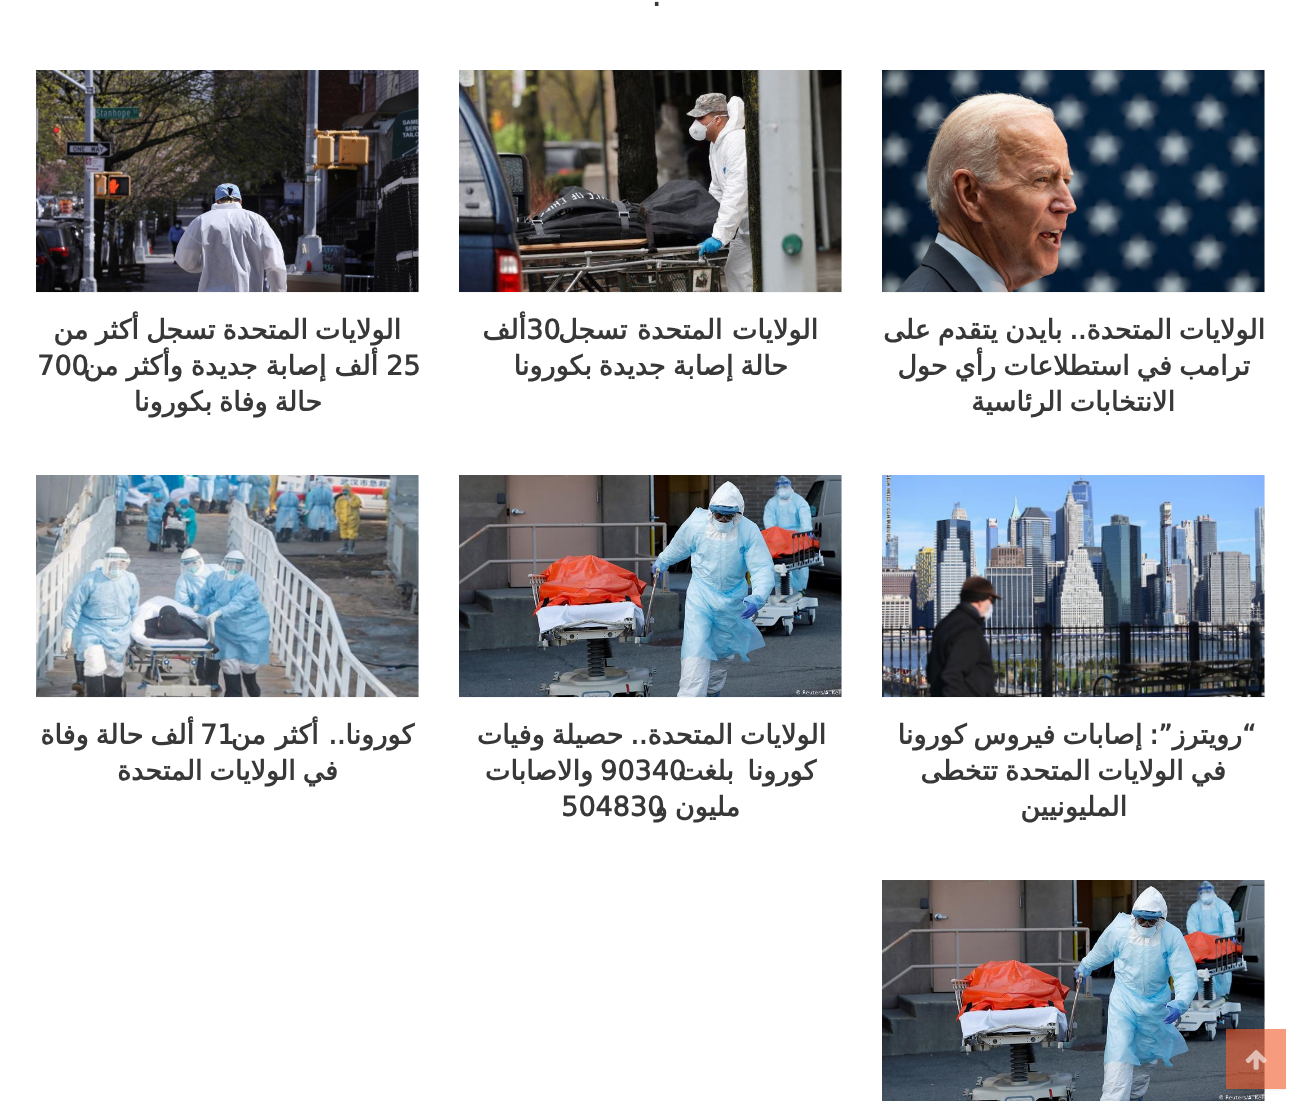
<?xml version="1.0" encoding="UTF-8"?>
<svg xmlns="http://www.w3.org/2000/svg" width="1300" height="1101">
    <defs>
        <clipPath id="clip1"><rect x="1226" y="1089" width="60" height="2"/></clipPath>
        <filter id="blur1" x="-50%" y="-200%" width="200%" height="500%"><feGaussianBlur stdDeviation="1.5"/></filter>
    </defs>
    <rect width="100%" height="100%" fill="#FFFFFF"/>
    <text x="652" y="6" font-family="DejaVu Sans" font-size="27" font-weight="700" fill="#383838">.</text>
    <rect x="882" y="71" width="383" height="222" fill="#F5F5F5"/>
    <image x="882" y="70" width="383" height="222" href="img_01.png"/>
    <text x="1265" y="339" word-spacing="-1.5" font-family="DejaVu Sans" font-size="27" font-weight="700" direction="rtl" fill="#383838">الولايات المتحدة.. بايدن يتقدم على</text>
    <text x="1250" y="375" word-spacing="-1.5" font-family="DejaVu Sans" font-size="27" font-weight="700" direction="rtl" fill="#383838">ترامب في استطلاعات رأي حول</text>
    <text x="1175" y="411" word-spacing="-1.5" font-family="DejaVu Sans" font-size="27" font-weight="700" direction="rtl" fill="#383838">الانتخابات الرئاسية</text>
    <rect x="459" y="71" width="383" height="222" fill="#F5F5F5"/>
    <image x="459" y="70" width="383" height="222" href="img_02.png"/>
    <text x="526" y="339" font-family="DejaVu Sans" font-size="27" font-weight="700" fill="#383838">30</text>
    <text x="818" y="339" word-spacing="1" font-family="DejaVu Sans" font-size="27" font-weight="700" direction="rtl" fill="#383838">الولايات المتحدة تسجل</text>
    <text x="526" y="339" font-family="DejaVu Sans" font-size="27" font-weight="700" direction="rtl" fill="#383838">ألف</text>
    <text x="788" y="375" word-spacing="-1.5" font-family="DejaVu Sans" font-size="27" font-weight="700" direction="rtl" fill="#383838">حالة إصابة جديدة بكورونا</text>
    <rect x="36" y="71" width="383" height="222" fill="#F5F5F5"/>
    <image x="36" y="70" width="383" height="222" href="img_03.png"/>
    <text x="401" y="339" word-spacing="-1.5" font-family="DejaVu Sans" font-size="27" font-weight="700" direction="rtl" fill="#383838">الولايات المتحدة تسجل أكثر من</text>
    <text x="386" y="375" font-family="DejaVu Sans" font-size="27" font-weight="700" fill="#383838">25</text>
    <text x="37" y="375" font-family="DejaVu Sans" font-size="27" font-weight="700" fill="#383838">700</text>
    <text x="378" y="375" word-spacing="-0.5" font-family="DejaVu Sans" font-size="27" font-weight="700" direction="rtl" fill="#383838">ألف إصابة جديدة وأكثر من</text>
    <text x="322" y="411" word-spacing="-1.5" font-family="DejaVu Sans" font-size="27" font-weight="700" direction="rtl" fill="#383838">حالة وفاة بكورونا</text>
    <rect x="882" y="476" width="383" height="222" fill="#F5F5F5"/>
    <image x="882" y="475" width="383" height="222" href="img_04.png"/>
    <text x="1256" y="744" word-spacing="-1.5" font-family="DejaVu Sans" font-size="27" font-weight="700" direction="rtl" fill="#383838">“رويترز”: إصابات فيروس كورونا</text>
    <text x="1226" y="780" word-spacing="-1.5" font-family="DejaVu Sans" font-size="27" font-weight="700" direction="rtl" fill="#383838">في الولايات المتحدة تتخطى</text>
    <text x="1127" y="816" font-family="DejaVu Sans" font-size="27" font-weight="700" direction="rtl" fill="#383838">المليونيين</text>
    <rect x="459" y="476" width="383" height="222" fill="#F5F5F5"/>
    <image x="459" y="475" width="383" height="222" href="img_05.png"/>
    <text x="826" y="744" word-spacing="-1.5" font-family="DejaVu Sans" font-size="27" font-weight="700" direction="rtl" fill="#383838">الولايات المتحدة.. حصيلة وفيات</text>
    <text x="600" y="780" font-family="DejaVu Sans" font-size="27" font-weight="700" fill="#383838">90340</text>
    <text x="816" y="780" word-spacing="5" font-family="DejaVu Sans" font-size="27" font-weight="700" direction="rtl" fill="#383838">كورونا بلغت</text>
    <text x="593" y="780" font-family="DejaVu Sans" font-size="27" font-weight="700" direction="rtl" fill="#383838">والاصابات</text>
    <text x="561" y="816" font-family="DejaVu Sans" font-size="27" font-weight="700" fill="#383838">504830</text>
    <text x="740" y="816" word-spacing="-1.5" font-family="DejaVu Sans" font-size="27" font-weight="700" direction="rtl" fill="#383838">مليون و</text>
    <rect x="36" y="476" width="383" height="222" fill="#F5F5F5"/>
    <image x="36" y="475" width="383" height="222" href="img_06.png"/>
    <text x="414" y="744" word-spacing="1" font-family="DejaVu Sans" font-size="27" font-weight="700" direction="rtl" fill="#383838">كورونا.. أكثر من</text>
    <text x="200" y="744" font-family="DejaVu Sans" font-size="27" font-weight="700" fill="#383838">71</text>
    <text x="194" y="744" word-spacing="-1.5" font-family="DejaVu Sans" font-size="27" font-weight="700" direction="rtl" fill="#383838">ألف حالة وفاة</text>
    <text x="338" y="780" word-spacing="-1.5" font-family="DejaVu Sans" font-size="27" font-weight="700" direction="rtl" fill="#383838">في الولايات المتحدة</text>
    <rect x="1264" y="881" width="1" height="220" fill="#F5F5F5"/>
    <image x="882" y="880" width="383" height="221" href="img_07.png"/>
    <g clip-path="url(#clip1)">
        <rect x="1226" y="1031" width="60" height="60" fill="#000000" fill-opacity="0.05" filter="url(#blur1)"/>
    </g>
    <rect x="1226" y="1029" width="60" height="60" fill="#F1592A" fill-opacity="0.6"/>
    <image x="1245" y="1050" width="22" height="20" href="img_08.png"/>
</svg>
